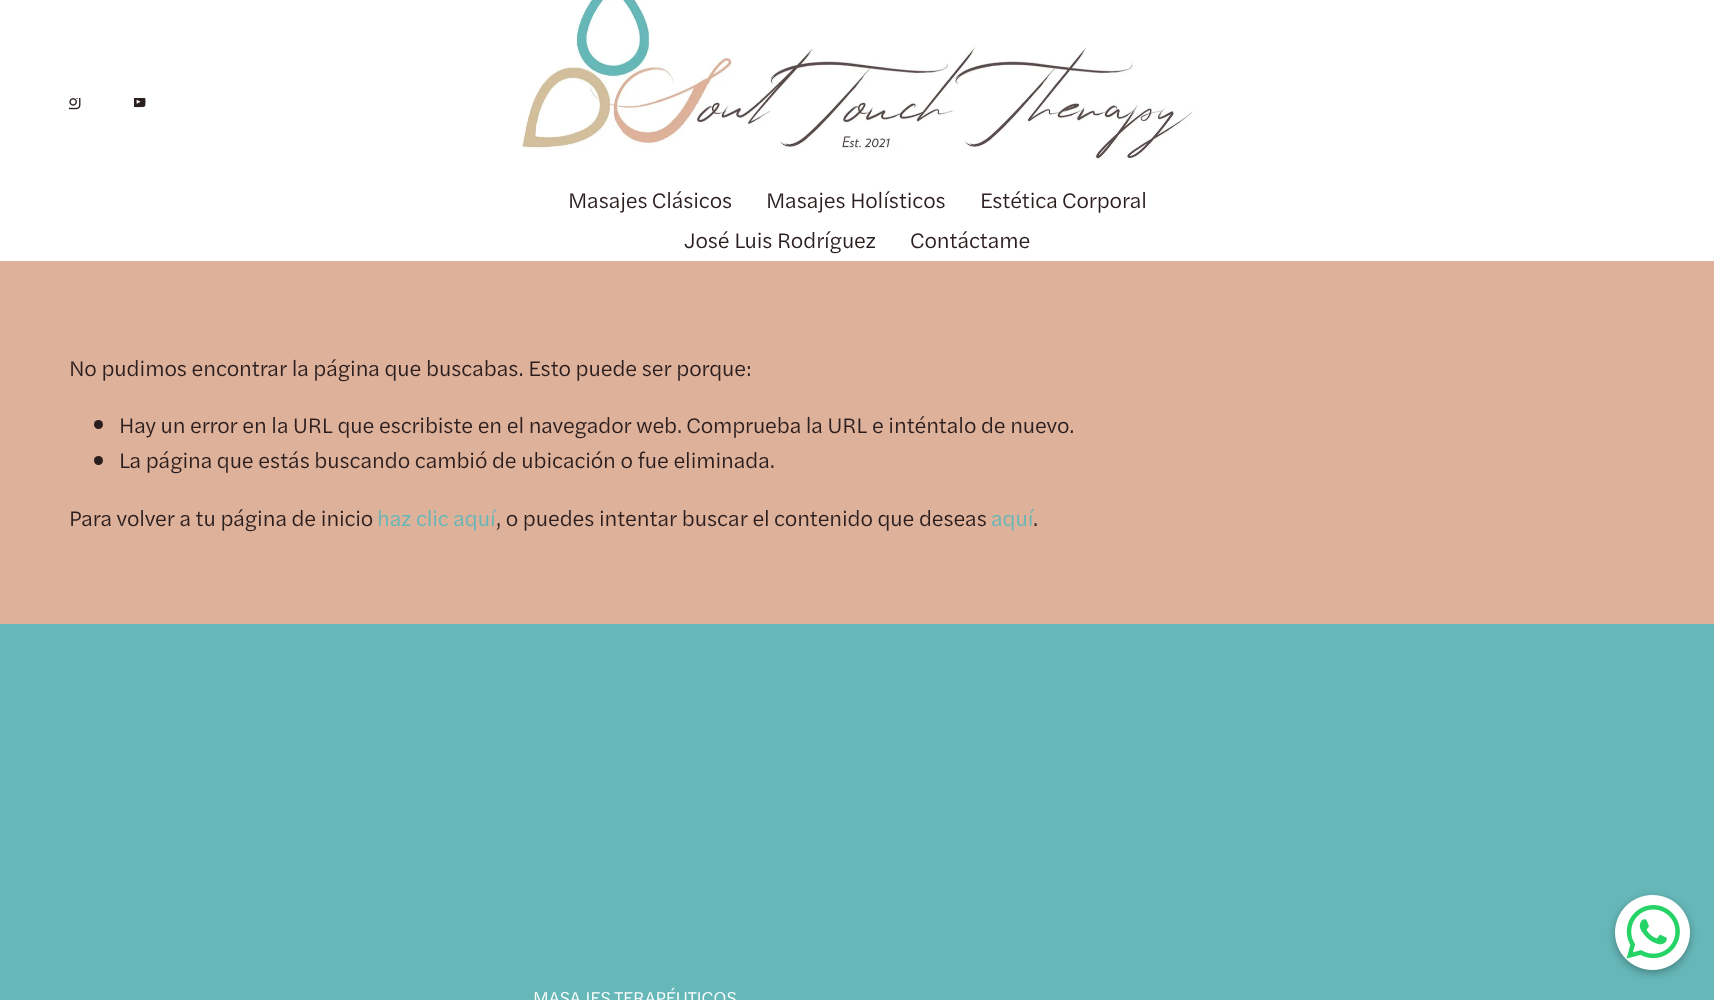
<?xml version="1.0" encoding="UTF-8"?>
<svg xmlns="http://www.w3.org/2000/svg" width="1714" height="1000">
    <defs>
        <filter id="blur1" x="-50%" y="-200%" width="200%" height="500%"><feGaussianBlur stdDeviation="4"/></filter>
    </defs>
    <rect width="100%" height="100%" fill="#DEB19A"/>
    <rect x="0" y="0" width="1714" height="261" fill="#FFFFFF"/>
    <image x="69" y="98" width="12" height="12" href="img_01.png"/>
    <image x="134" y="98" width="12" height="10" href="img_02.png"/>
    <image x="521" y="0" width="672" height="160" href="img_03.png"/>
    <text x="568" y="208" font-family="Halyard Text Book" font-size="22.05" fill="#2B1E1F">Masajes Clásicos</text>
    <text x="766" y="208" font-family="Halyard Text Book" font-size="22.05" fill="#2B1E1F">Masajes Holísticos</text>
    <text x="980" y="208" font-family="Halyard Text Book" font-size="22.05" fill="#2B1E1F">Estética Corporal</text>
    <text x="684" y="248" font-family="Halyard Text Book" font-size="22.05" fill="#2B1E1F">José Luis Rodríguez</text>
    <text x="910" y="248" font-family="Halyard Text Book" font-size="22.05" fill="#2B1E1F">Contáctame</text>
    <text x="69" y="376" font-family="Halyard Text Book" font-size="22.05" fill="#2B1E1F">No pudimos encontrar la página que buscabas. Esto puede ser porque:</text>
    <circle cx="98.5" cy="424.5" r="4.5" fill="#2B1E1F"/>
    <text x="119" y="433" font-family="Halyard Text Book" font-size="22.05" fill="#2B1E1F">Hay un error en la URL que escribiste en el navegador web. Comprueba la URL e inténtalo de nuevo.</text>
    <circle cx="98.5" cy="460.5" r="4.5" fill="#2B1E1F"/>
    <text x="119" y="468" font-family="Halyard Text Book" font-size="22.05" fill="#2B1E1F">La página que estás buscando cambió de ubicación o fue eliminada.</text>
    <text x="69" y="526" font-family="Halyard Text Book" font-size="22.05" fill="#2B1E1F">Para volver a tu página de inicio</text>
    <text x="377" y="526" font-family="Halyard Text Book" font-size="22.05" fill="#66B7B8">haz clic aquí</text>
    <text x="496" y="526" font-family="Halyard Text Book" font-size="22.05" fill="#2B1E1F">, o puedes intentar buscar el</text>
    <text x="774" y="526" font-family="Halyard Text Book" font-size="22.05" fill="#2B1E1F">contenido que deseas</text>
    <text x="991" y="526" font-family="Halyard Text Book" font-size="22.05" fill="#66B7B8">aquí</text>
    <text x="1033" y="526" font-family="Halyard Text Book" font-size="22.05" fill="#2B1E1F">.</text>
    <rect x="0" y="624" width="1714" height="376" fill="#66B7B8"/>
    <text x="533" y="1004" font-family="Halyard Text Book" font-size="18" fill="#FFFFFF">MASAJES TERAPÉUTICOS</text>
    <rect x="1615" y="898" width="75" height="75" rx="37.5" fill="#000000" fill-opacity="0.3" filter="url(#blur1)"/>
    <image x="1615" y="895" width="75" height="75" href="img_04.png"/>
</svg>
